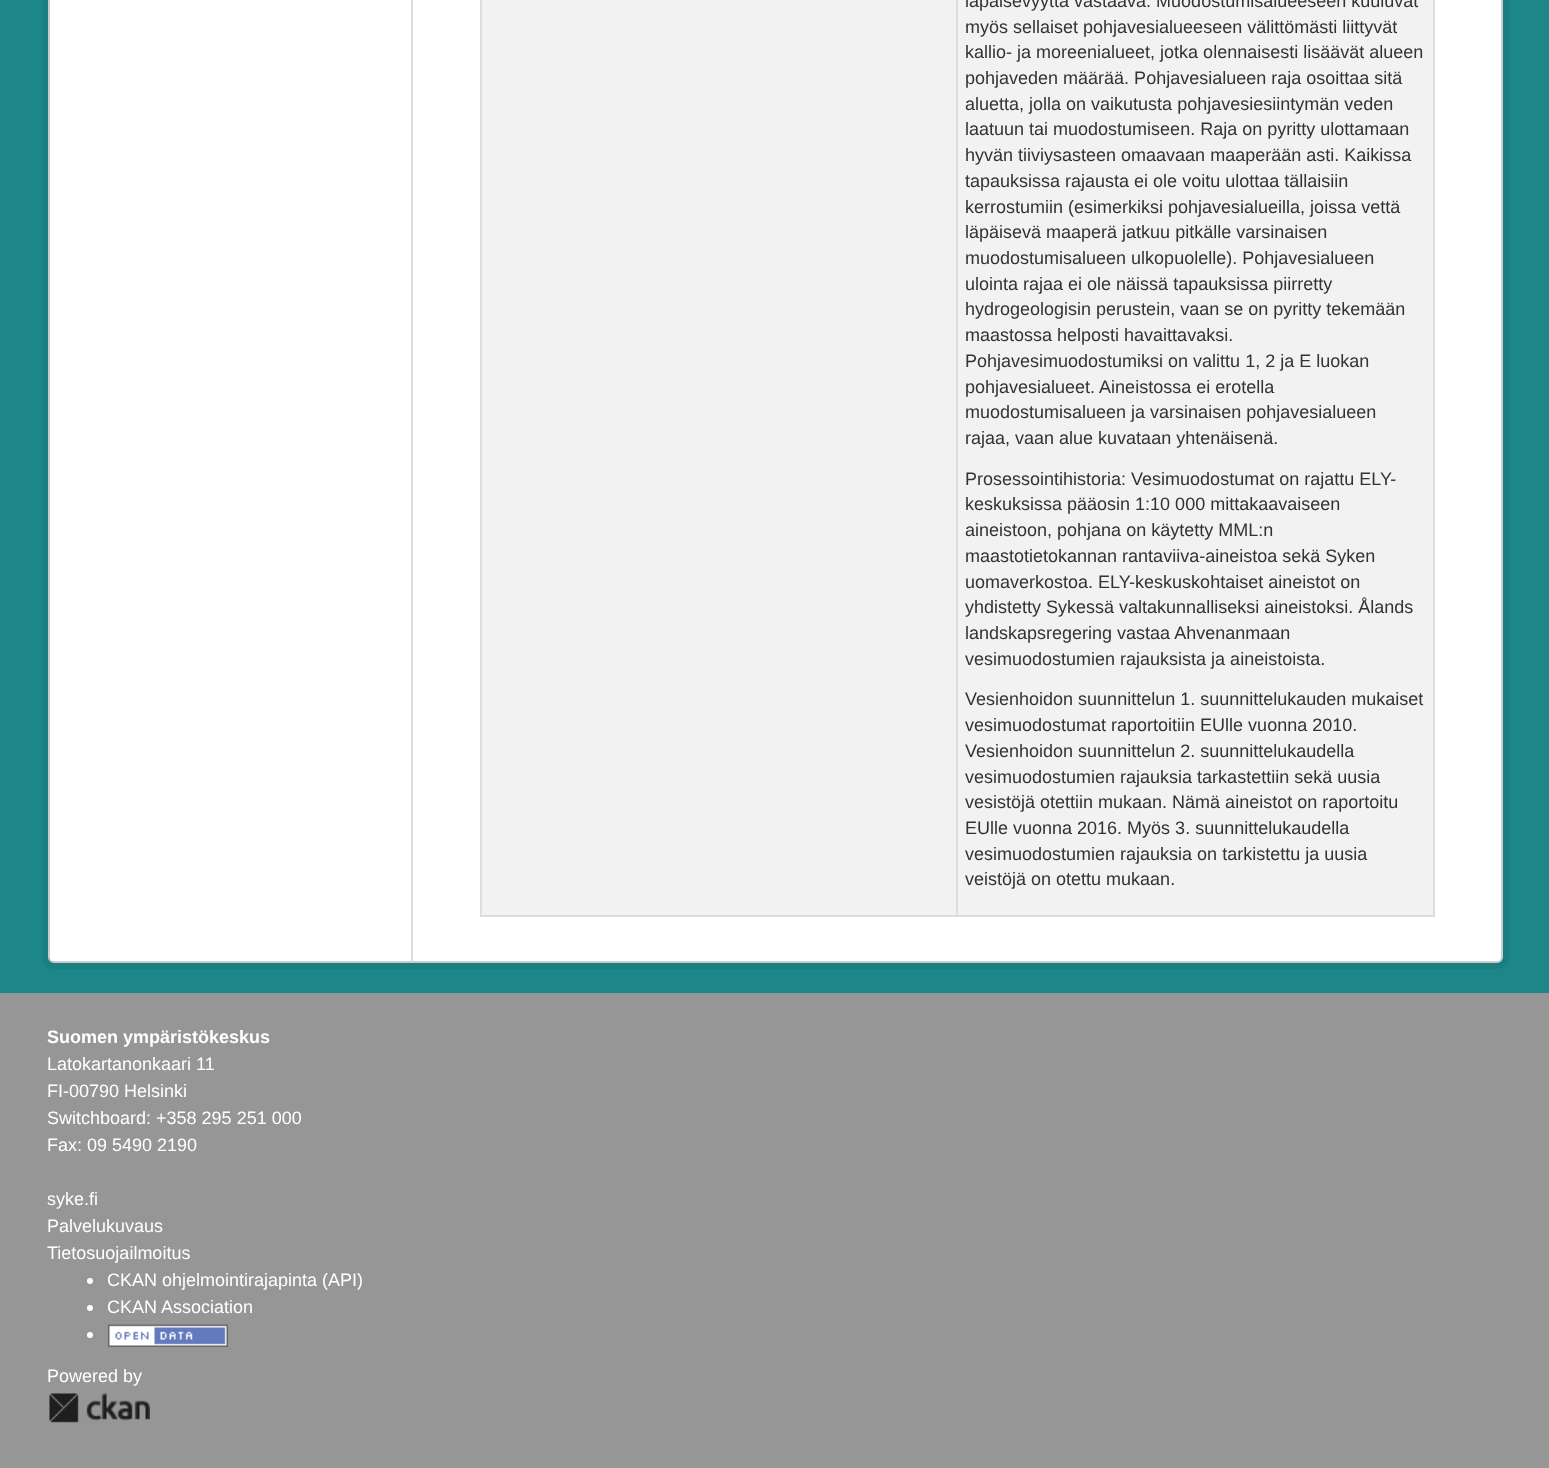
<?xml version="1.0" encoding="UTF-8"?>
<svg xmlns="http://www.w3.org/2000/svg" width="1549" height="1468">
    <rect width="100%" height="100%" fill="#969696"/>
    <rect x="0" y="0" width="1549" height="993" fill="#1C8689"/>
    <rect x="45" y="-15" width="1461" height="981" rx="9" fill="none" stroke="#1B7F82" stroke-width="6"/>
    <rect x="49" y="-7" width="1453" height="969" rx="5" fill="#FFFFFF" stroke="#CCCCCC" stroke-width="2"/>
    <rect x="411" y="0" width="2" height="962" fill="#DDDDDD"/>
    <rect x="1433" y="0" width="2" height="917" fill="#DDDDDD"/>
    <rect x="480" y="915" width="954" height="2" fill="#DDDDDD"/>
    <rect x="480" y="0" width="2" height="917" fill="#DDDDDD"/>
    <rect x="482" y="0" width="474" height="915" fill="#F2F2F2"/>
    <rect x="958" y="0" width="475" height="915" fill="#F2F2F2"/>
    <rect x="956" y="0" width="2" height="917" fill="#DDDDDD"/>
    <text font-family="Liberation Sans" font-size="18" fill="#333333">
        <tspan x="965" y="7">läpäisevyyttä vastaava. Muodostumisalueeseen kuuluvat</tspan>
        <tspan x="965" y="33">myös sellaiset pohjavesialueeseen välittömästi liittyvät</tspan>
        <tspan x="965" y="58">kallio- ja moreenialueet, jotka olennaisesti lisäävät alueen</tspan>
        <tspan x="965" y="84">pohjaveden määrää. Pohjavesialueen raja osoittaa sitä</tspan>
        <tspan x="965" y="110">aluetta, jolla on vaikutusta pohjavesiesiintymän veden</tspan>
        <tspan x="965" y="135">laatuun tai muodostumiseen. Raja on pyritty ulottamaan</tspan>
        <tspan x="965" y="161">hyvän tiiviysasteen omaavaan maaperään asti. Kaikissa</tspan>
        <tspan x="965" y="187">tapauksissa rajausta ei ole voitu ulottaa tällaisiin</tspan>
        <tspan x="965" y="213">kerrostumiin (esimerkiksi pohjavesialueilla, joissa vettä</tspan>
        <tspan x="965" y="238">läpäisevä maaperä jatkuu pitkälle varsinaisen</tspan>
        <tspan x="965" y="264">muodostumisalueen ulkopuolelle). Pohjavesialueen</tspan>
        <tspan x="965" y="290">ulointa rajaa ei ole näissä tapauksissa piirretty</tspan>
        <tspan x="965" y="315">hydrogeologisin perustein, vaan se on pyritty tekemään</tspan>
        <tspan x="965" y="341">maastossa helposti havaittavaksi.</tspan>
        <tspan x="965" y="367">Pohjavesimuodostumiksi on valittu 1, 2 ja E luokan</tspan>
        <tspan x="965" y="393">pohjavesialueet. Aineistossa ei erotella</tspan>
        <tspan x="965" y="418">muodostumisalueen ja varsinaisen pohjavesialueen</tspan>
        <tspan x="965" y="444">rajaa, vaan alue kuvataan yhtenäisenä.</tspan>
    </text>
    <text font-family="Liberation Sans" font-size="18" fill="#333333">
        <tspan x="965" y="485">Prosessointihistoria: Vesimuodostumat on rajattu ELY-</tspan>
        <tspan x="965" y="510">keskuksissa pääosin 1:10 000 mittakaavaiseen</tspan>
        <tspan x="965" y="536">aineistoon, pohjana on käytetty MML:n</tspan>
        <tspan x="965" y="562">maastotietokannan rantaviiva-aineistoa sekä Syken</tspan>
        <tspan x="965" y="588">uomaverkostoa. ELY-keskuskohtaiset aineistot on</tspan>
        <tspan x="965" y="613">yhdistetty Sykessä valtakunnalliseksi aineistoksi. Ålands</tspan>
        <tspan x="965" y="639">landskapsregering vastaa Ahvenanmaan</tspan>
        <tspan x="965" y="665">vesimuodostumien rajauksista ja aineistoista.</tspan>
    </text>
    <text font-family="Liberation Sans" font-size="18" fill="#333333">
        <tspan x="965" y="705">Vesienhoidon suunnittelun 1. suunnittelukauden mukaiset</tspan>
        <tspan x="965" y="731">vesimuodostumat raportoitiin EUlle vuonna 2010.</tspan>
        <tspan x="965" y="757">Vesienhoidon suunnittelun 2. suunnittelukaudella</tspan>
        <tspan x="965" y="783">vesimuodostumien rajauksia tarkastettiin sekä uusia</tspan>
        <tspan x="965" y="808">vesistöjä otettiin mukaan. Nämä aineistot on raportoitu</tspan>
        <tspan x="965" y="834">EUlle vuonna 2016. Myös 3. suunnittelukaudella</tspan>
        <tspan x="965" y="860">vesimuodostumien rajauksia on tarkistettu ja uusia</tspan>
        <tspan x="965" y="885">veistöjä on otettu mukaan.</tspan>
    </text>
    <text x="47" y="1043" font-family="Liberation Sans" font-size="18" font-weight="700" fill="#FFFFFF">Suomen ympäristökeskus</text>
    <text font-family="Liberation Sans" font-size="18" fill="#FFFFFF">
        <tspan x="47" y="1070">Latokartanonkaari 11</tspan>
        <tspan x="47" y="1097">FI-00790 Helsinki</tspan>
        <tspan x="47" y="1124">Switchboard: +358 295 251 000</tspan>
        <tspan x="47" y="1151">Fax: 09 5490 2190</tspan>
    </text>
    <text font-family="Liberation Sans" font-size="18" fill="#FFFFFF">
        <tspan x="47" y="1205">syke.fi</tspan>
        <tspan x="47" y="1232">Palvelukuvaus</tspan>
        <tspan x="47" y="1259">Tietosuojailmoitus</tspan>
    </text>
    <circle cx="90" cy="1281" r="3" fill="#FFFFFF"/>
    <text x="107" y="1286" font-family="Liberation Sans" font-size="18" fill="#FFFFFF">CKAN ohjelmointirajapinta (API)</text>
    <circle cx="90" cy="1308" r="3" fill="#FFFFFF"/>
    <text x="107" y="1313" font-family="Liberation Sans" font-size="18" fill="#FFFFFF">CKAN Association</text>
    <circle cx="90" cy="1335" r="3" fill="#FFFFFF"/>
    <image x="108" y="1324" width="120" height="23" href="img_01.png"/>
    <text x="47" y="1382" font-family="Liberation Sans" font-size="18" fill="#FFFFFF">Powered by</text>
    <image x="49" y="1393" width="101" height="30" href="img_02.png"/>
</svg>
